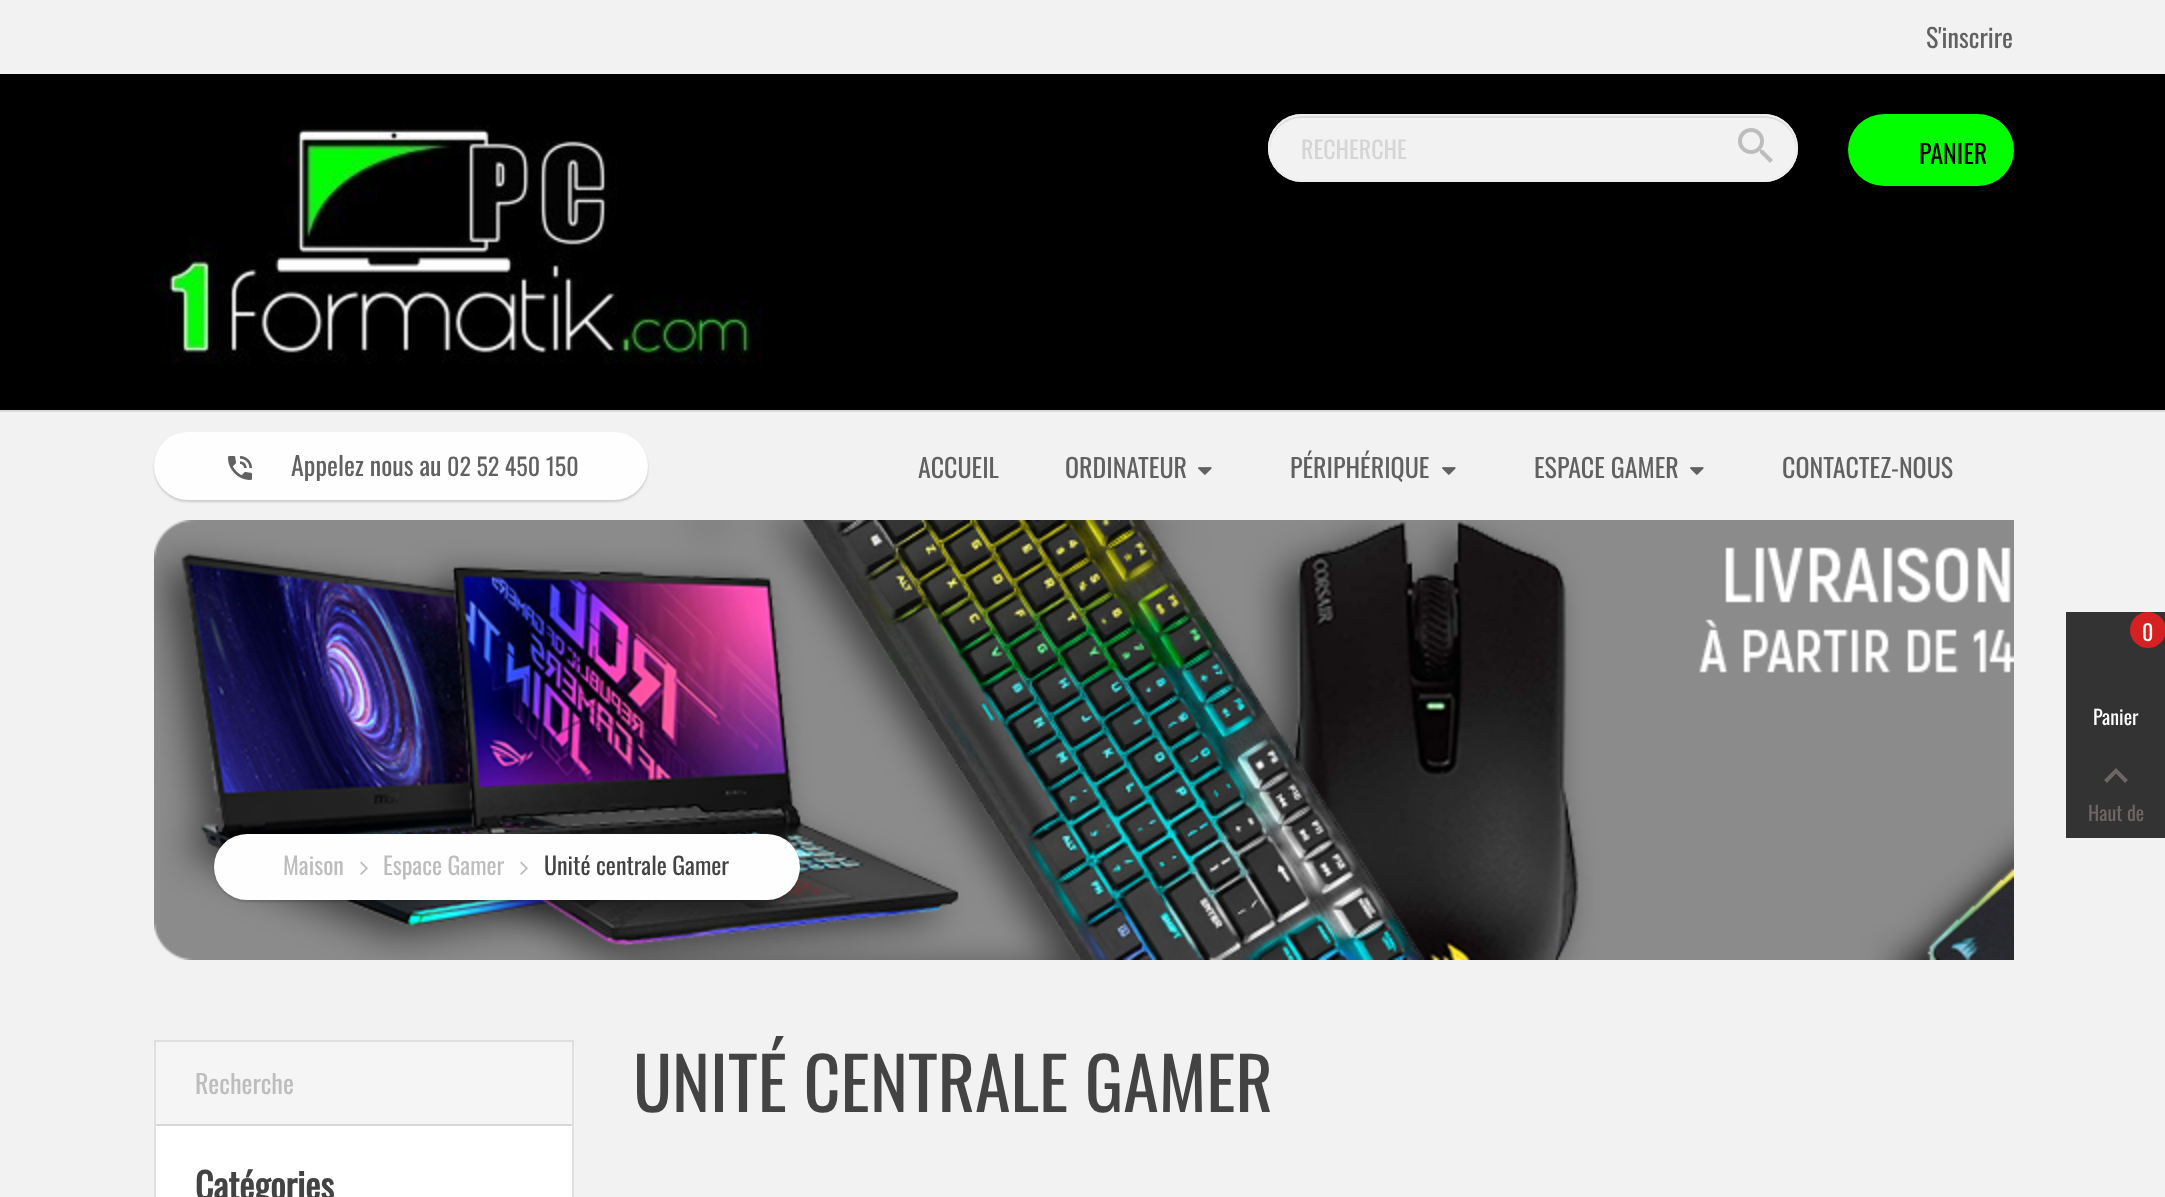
<?xml version="1.0" encoding="UTF-8"?>
<svg xmlns="http://www.w3.org/2000/svg" width="2165" height="1197">
    <defs>
        <filter id="blur1" x="-50%" y="-200%" width="200%" height="500%"><feGaussianBlur stdDeviation="1"/></filter>
    </defs>
    <rect width="100%" height="100%" fill="#F2F2F2"/>
    <text x="1926" y="48" font-family="Oswald" font-size="26" fill="#616161">S'inscrire</text>
    <rect x="0" y="74" width="2165" height="336" fill="#000000"/>
    <image x="154" y="124" width="609" height="241" href="img_01.png"/>
    <rect x="1268" y="114" width="530" height="68" rx="34" fill="#F2F2F2"/>
    <path d="M 1302 118 H 1764 C 1782 118 1795 131 1796 149 C 1797 131 1782 116 1764 116 H 1302 C 1284 116 1269 131 1270 149 C 1271 131 1284 118 1302 118 Z" fill="#DADADA"/>
    <rect x="1269" y="115" width="528" height="66" rx="33" fill="none" stroke="#EEEEEE" stroke-width="2"/>
    <text x="1301" y="159" font-family="Oswald" font-size="24" fill="#D5D5D5">RECHERCHE</text>
    <image x="1738" y="128" width="35" height="35" href="img_02.png"/>
    <rect x="1848" y="114" width="166" height="72" rx="36" fill="#01FF00"/>
    <text x="1919" y="164" font-family="Oswald" font-size="26" fill="#000000">PANIER</text>
    <rect x="0" y="410" width="2165" height="2" fill="#D9D9D9"/>
    <rect x="154" y="434" width="494" height="68" rx="34" fill="#000101" fill-opacity="0.16" filter="url(#blur1)"/>
    <rect x="154" y="432" width="494" height="68" rx="34" fill="#FDFEFD"/>
    <image x="228" y="456" width="24" height="24" href="img_03.png"/>
    <text x="291" y="476" font-family="Oswald" font-size="26" fill="#616161">Appelez nous au</text>
    <text x="447" y="476" font-family="Oswald" font-size="24" fill="#616161">02 52 450 150</text>
    <text x="918" y="478" font-family="Oswald" font-size="26" fill="#616161">ACCUEIL</text>
    <text x="1065" y="478" font-family="Oswald" font-size="26" fill="#616161">ORDINATEUR</text>
    <image x="1198" y="467" width="14" height="8" href="img_04.png"/>
    <text x="1290" y="478" font-family="Oswald" font-size="26" fill="#616161">PÉRIPHÉRIQUE</text>
    <image x="1442" y="467" width="14" height="8" href="img_04.png"/>
    <text x="1534" y="478" font-family="Oswald" font-size="26" fill="#616161">ESPACE GAMER</text>
    <image x="1690" y="467" width="14" height="8" href="img_04.png"/>
    <text x="1782" y="478" font-family="Oswald" font-size="26" fill="#616161">CONTACTEZ-NOUS</text>
    <rect x="2066" y="612" width="99" height="226" fill="#333333"/>
    <circle cx="2148" cy="630" r="18" fill="#D52121"/>
    <text x="2142" y="641" font-family="Oswald" font-size="22" fill="#FFFFFF">0</text>
    <text x="2093" y="725" font-family="Oswald" font-size="20" fill="#FFFFFF">Panier</text>
    <path d="M 2107 783 L 2104 780 L 2116 768 L 2128 780 L 2125 783 L 2116 773.5 Z" fill="#706565"/>
    <text x="2088" y="821" font-family="Oswald" font-size="20" fill="#706565">Haut de</text>
    <image x="154" y="520" width="1860" height="440" href="img_05.png"/>
    <rect x="214" y="836" width="586" height="66" rx="33" fill="#000101" fill-opacity="0.16" filter="url(#blur1)"/>
    <rect x="214" y="834" width="586" height="66" rx="33" fill="#FDFEFD"/>
    <text x="283" y="875" font-family="Oswald" font-size="24" fill="#BDBDBD">Maison</text>
    <image x="360" y="861" width="8" height="14" href="img_06.png"/>
    <text x="383" y="875" font-family="Oswald" font-size="24" fill="#BDBDBD">Espace Gamer</text>
    <image x="520" y="861" width="8" height="14" href="img_06.png"/>
    <text x="544" y="875" font-family="Oswald" font-size="24" fill="#434343">Unité centrale Gamer</text>
    <rect x="156" y="1126" width="416" height="71" fill="#FFFFFF"/>
    <rect x="155" y="1041" width="418" height="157" fill="none" stroke="#DFDFDF" stroke-width="2"/>
    <rect x="156" y="1042" width="416" height="82" fill="#F5F5F5"/>
    <rect x="156" y="1124" width="416" height="2" fill="#D6D6D6"/>
    <text x="195" y="1094" font-family="Oswald" font-size="26" fill="#BDBDBD">Recherche</text>
    <text x="195" y="1200" font-family="Oswald" font-size="36" font-weight="700" fill="#434343">Catégories</text>
    <text x="633" y="1112" font-family="Oswald" font-size="72" fill="#434343">UNITÉ CENTRALE GAMER</text>
</svg>
